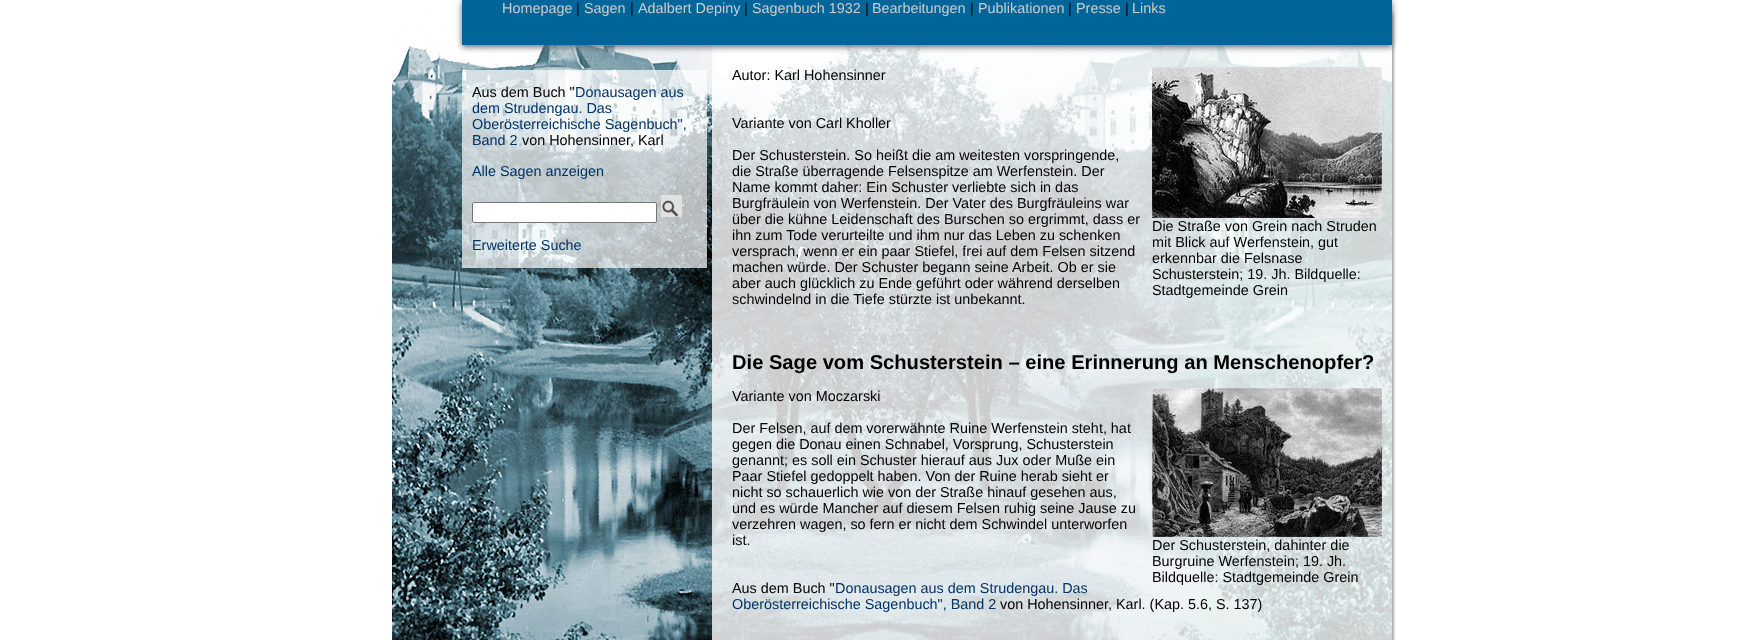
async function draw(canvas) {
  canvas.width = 1744;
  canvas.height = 640;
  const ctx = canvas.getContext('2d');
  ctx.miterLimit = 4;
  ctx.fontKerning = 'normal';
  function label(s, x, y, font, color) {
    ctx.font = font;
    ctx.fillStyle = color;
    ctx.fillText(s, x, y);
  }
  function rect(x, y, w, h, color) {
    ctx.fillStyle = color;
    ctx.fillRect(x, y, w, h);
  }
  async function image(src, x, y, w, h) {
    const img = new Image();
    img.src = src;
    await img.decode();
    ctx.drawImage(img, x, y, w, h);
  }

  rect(0, 0, 1744, 640, '#fff');
  await image('assets/img1.png', 392, 6, 1000, 634);
  ctx.save();
  ctx.beginPath();
  ctx.rect(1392, 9, 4, 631);
  ctx.clip();
  ctx.fillStyle = '#aaa';
  ctx.filter = 'blur(1px)';
  ctx.beginPath();
  ctx.roundRect(714, 8, 680, 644, 9);
  ctx.fill();
  ctx.filter = 'none';
  ctx.restore();
  rect(712, 45, 680, 595, '#ffffffcc');
  ctx.fillStyle = '#666';
  ctx.filter = 'blur(3px)';
  ctx.beginPath();
  ctx.rect(462, 2, 930, 45);
  ctx.fill();
  ctx.filter = 'none';
  rect(462, 0, 930, 45, '#069');
  label('Homepage', 502, 13, '14.4px Liberation Sans', '#ccc');
  label('|', 576, 13, '14.4px Liberation Sans', '#000');
  label('Sagen', 584, 13, '14.4px Liberation Sans', '#ccc');
  label('|', 630, 13, '14.4px Liberation Sans', '#000');
  label('Adalbert Depiny', 638, 13, '14.4px Liberation Sans', '#ccc');
  label('|', 744, 13, '14.4px Liberation Sans', '#000');
  label('Sagenbuch 1932', 752, 13, '14.4px Liberation Sans', '#ccc');
  label('|', 865, 13, '14.4px Liberation Sans', '#000');
  label('Bearbeitungen', 872, 13, '14.4px Liberation Sans', '#ccc');
  label('|', 970, 13, '14.4px Liberation Sans', '#000');
  label('Publikationen', 978, 13, '14.4px Liberation Sans', '#ccc');
  label('|', 1068, 13, '14.4px Liberation Sans', '#000');
  label('Presse', 1076, 13, '14.4px Liberation Sans', '#ccc');
  label('|', 1125, 13, '14.4px Liberation Sans', '#000');
  label('Links', 1132, 13, '14.4px Liberation Sans', '#ccc');
  rect(462, 70, 245, 198, '#ffffffb3');
  label('Aus dem Buch "', 472, 97, '14.4px Liberation Sans', '#000');
  label('Donausagen aus', 575, 97, '14.4px Liberation Sans', '#036');
  label('dem Strudengau. Das', 472, 113, '14.4px Liberation Sans', '#036');
  label('Oberösterreichische Sagenbuch",', 472, 129, '14.4px Liberation Sans', '#036');
  label('Band 2', 472, 145, '14.4px Liberation Sans', '#036');
  label('von Hohensinner, Karl', 522, 145, '14.4px Liberation Sans', '#000');
  label('Alle Sagen anzeigen', 472, 176, '14.4px Liberation Sans', '#036');
  ctx.fillStyle = '#fff';
  ctx.beginPath();
  ctx.roundRect(472.5, 202.5, 184, 20, 1.5);
  ctx.fill();
  ctx.strokeStyle = '#767676';
  ctx.stroke();
  await image('assets/img2.png', 661, 195, 21, 22);
  label('Erweiterte Suche', 472, 250, '14.4px Liberation Sans', '#036');
  label('Autor: Karl Hohensinner', 732, 80, '14.4px Liberation Sans', '#000');
  label('Variante von Carl Kholler', 732, 128, '14.4px Liberation Sans', '#000');
  label('Der Schusterstein. So heißt die am weitesten vorspringende,', 732, 160, '14.4px Liberation Sans', '#000');
  label('die Straße überragende Felsenspitze am Werfenstein. Der', 732, 176, '14.4px Liberation Sans', '#000');
  label('Name kommt daher: Ein Schuster verliebte sich in das', 732, 192, '14.4px Liberation Sans', '#000');
  label('Burgfräulein von Werfenstein. Der Vater des Burgfräuleins war', 732, 208, '14.4px Liberation Sans', '#000');
  label('über die kühne Leidenschaft des Burschen so ergrimmt, dass er', 732, 224, '14.4px Liberation Sans', '#000');
  label('ihn zum Tode verurteilte und ihm nur das Leben zu schenken', 732, 240, '14.4px Liberation Sans', '#000');
  label('versprach, wenn er ein paar Stiefel, frei auf dem Felsen sitzend', 732, 256, '14.4px Liberation Sans', '#000');
  label('machen würde. Der Schuster begann seine Arbeit. Ob er sie', 732, 272, '14.4px Liberation Sans', '#000');
  label('aber auch glücklich zu Ende geführt oder während derselben', 732, 288, '14.4px Liberation Sans', '#000');
  label('schwindelnd in die Tiefe stürzte ist unbekannt.', 732, 304, '14.4px Liberation Sans', '#000');
  await image('assets/img3.png', 1152, 67, 230, 151);
  label('Die Straße von Grein nach Struden', 1152, 231, '14.4px Liberation Sans', '#000');
  label('mit Blick auf Werfenstein, gut', 1152, 247, '14.4px Liberation Sans', '#000');
  label('erkennbar die Felsnase', 1152, 263, '14.4px Liberation Sans', '#000');
  label('Schusterstein; 19. Jh. Bildquelle:', 1152, 279, '14.4px Liberation Sans', '#000');
  label('Stadtgemeinde Grein', 1152, 295, '14.4px Liberation Sans', '#000');
  label('Die Sage vom Schusterstein – eine Erinnerung an Menschenopfer?', 732, 369, 'bold 20.15px Liberation Sans', '#000');
  label('Variante von Moczarski', 732, 401, '14.4px Liberation Sans', '#000');
  label('Der Felsen, auf dem vorerwähnte Ruine Werfenstein steht, hat', 732, 433, '14.4px Liberation Sans', '#000');
  label('gegen die Donau einen Schnabel, Vorsprung, Schusterstein', 732, 449, '14.4px Liberation Sans', '#000');
  label('genannt; es soll ein Schuster hierauf aus Jux oder Muße ein', 732, 465, '14.4px Liberation Sans', '#000');
  label('Paar Stiefel gedoppelt haben. Von der Ruine herab sieht er', 732, 481, '14.4px Liberation Sans', '#000');
  label('nicht so schauerlich wie von der Straße hinauf gesehen aus,', 732, 497, '14.4px Liberation Sans', '#000');
  label('und es würde Mancher auf diesem Felsen ruhig seine Jause zu', 732, 513, '14.4px Liberation Sans', '#000');
  label('verzehren wagen, so fern er nicht dem Schwindel unterworfen', 732, 529, '14.4px Liberation Sans', '#000');
  label('ist.', 732, 545, '14.4px Liberation Sans', '#000');
  label('Aus dem Buch "', 732, 593, '14.4px Liberation Sans', '#000');
  label('Donausagen aus dem Strudengau. Das', 835, 593, '14.4px Liberation Sans', '#036');
  label('Oberösterreichische Sagenbuch", Band 2', 732, 609, '14.4px Liberation Sans', '#036');
  label('von Hohensinner, Karl. (Kap. 5.6, S. 137)', 1000, 609, '14.4px Liberation Sans', '#000');
  await image('assets/img4.png', 1152, 388, 230, 149);
  label('Der Schusterstein, dahinter die', 1152, 550, '14.4px Liberation Sans', '#000');
  label('Burgruine Werfenstein; 19. Jh.', 1152, 566, '14.4px Liberation Sans', '#000');
  label('Bildquelle: Stadtgemeinde Grein', 1152, 582, '14.4px Liberation Sans', '#000');
}

draw(document.querySelector('canvas'));
